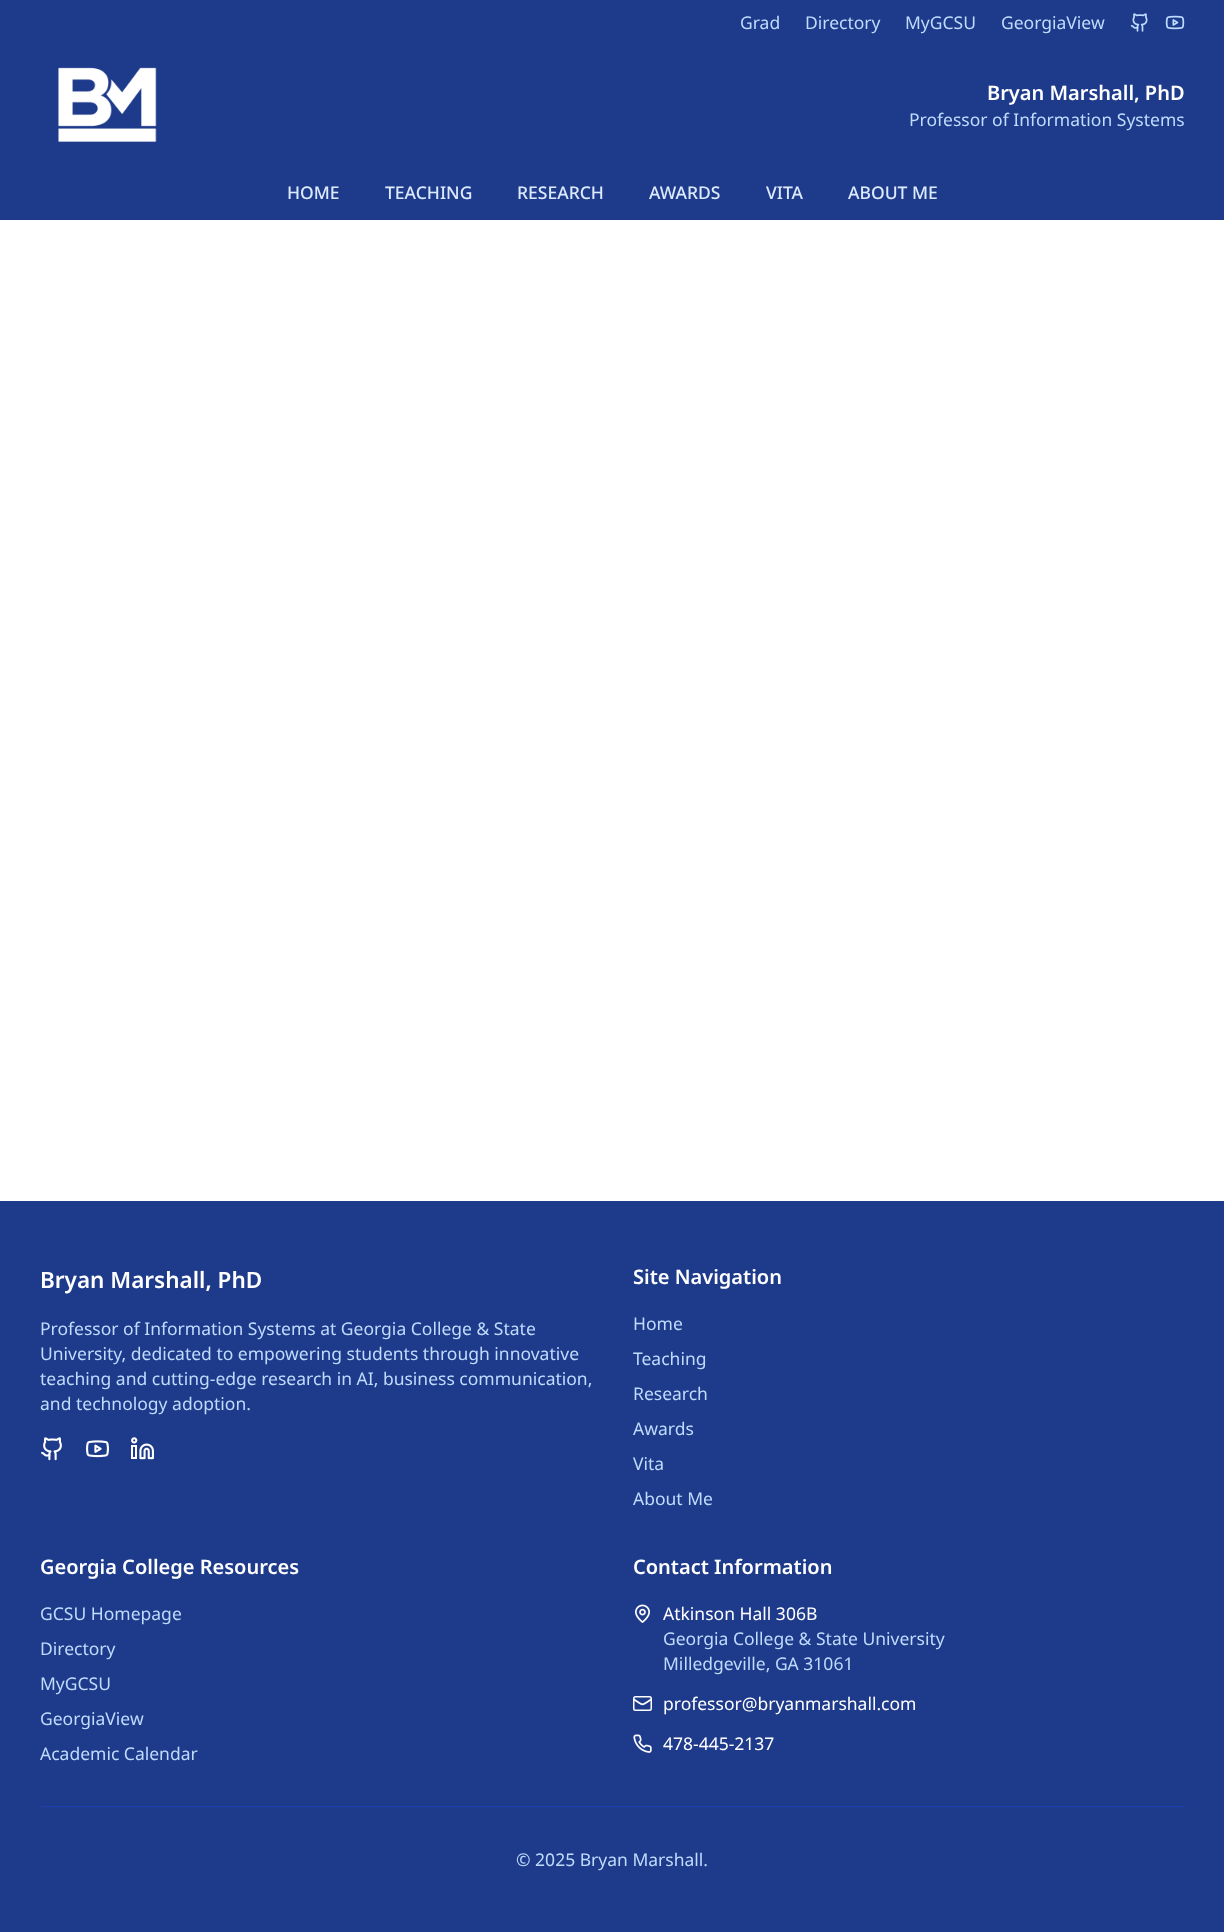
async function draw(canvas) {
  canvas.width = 1224;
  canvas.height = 1932;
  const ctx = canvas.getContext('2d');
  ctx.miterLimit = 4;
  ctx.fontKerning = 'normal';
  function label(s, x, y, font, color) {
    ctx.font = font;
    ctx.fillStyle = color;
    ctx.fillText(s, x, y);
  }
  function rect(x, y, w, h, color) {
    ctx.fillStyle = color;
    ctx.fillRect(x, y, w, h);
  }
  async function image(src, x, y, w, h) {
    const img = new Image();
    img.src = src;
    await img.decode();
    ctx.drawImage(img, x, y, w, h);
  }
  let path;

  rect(0, 0, 1224, 1932, '#fff');
  rect(0, 0, 1224, 220, '#1e3a8a');
  label('Grad', 740, 29, '17.5px Noto Sans', '#bfdbfe');
  label('Directory', 805, 29, '17.5px Noto Sans', '#bfdbfe');
  label('MyGCSU', 905, 29, '17.5px Noto Sans', '#bfdbfe');
  label('GeorgiaView', 1001, 29, '17.5px Noto Sans', '#bfdbfe');
  await image('assets/img1.png', 1130, 13, 18, 19);
  await image('assets/img2.png', 1165, 15, 20, 15);
  await image('assets/img3.png', 58, 67, 99, 75);
  label('Bryan Marshall, PhD', 987, 100, '600 20px Noto Sans', '#fff');
  label('Professor of Information Systems', 909, 126, '17.5px Noto Sans', '#bfdbfe');
  label('HOME', 287, 199, '500 17.5px Noto Sans', '#dbeafe');
  label('TEACHING', 385, 199, '500 17.5px Noto Sans', '#dbeafe');
  label('RESEARCH', 517, 199, '500 17.5px Noto Sans', '#dbeafe');
  label('AWARDS', 649, 199, '500 17.5px Noto Sans', '#dbeafe');
  label('VITA', 766, 199, '500 17.5px Noto Sans', '#dbeafe');
  label('ABOUT ME', 848, 199, '500 17.5px Noto Sans', '#dbeafe');
  rect(0, 1201, 1224, 731, '#1e3a8a');
  label('Bryan Marshall, PhD', 40, 1288, '600 22.5px Noto Sans', '#fff');
  label('Professor of Information Systems at Georgia College & State', 40, 1335, '17.5px Noto Sans', '#bfdbfe');
  label('University, dedicated to empowering students through innovative', 40, 1360, '17.5px Noto Sans', '#bfdbfe');
  label('teaching and cutting-edge research in AI, business communication,', 40, 1385, '17.5px Noto Sans', '#bfdbfe');
  label('and technology adoption.', 40, 1410, '17.5px Noto Sans', '#bfdbfe');
  await image('assets/img4.png', 41, 1437, 21, 24);
  await image('assets/img5.png', 86, 1440, 23, 18);
  await image('assets/img6.png', 131, 1437, 23, 23);
  label('Site Navigation', 633, 1284, '600 20px Noto Sans', '#fff');
  label('Home', 633, 1330, '17.5px Noto Sans', '#bfdbfe');
  label('Teaching', 633, 1365, '17.5px Noto Sans', '#bfdbfe');
  label('Research', 633, 1400, '17.5px Noto Sans', '#bfdbfe');
  label('Awards', 633, 1435, '17.5px Noto Sans', '#bfdbfe');
  label('Vita', 633, 1470, '17.5px Noto Sans', '#bfdbfe');
  label('About Me', 633, 1505, '17.5px Noto Sans', '#bfdbfe');
  label('Georgia College Resources', 40, 1574, '600 20px Noto Sans', '#fff');
  label('GCSU Homepage', 40, 1620, '17.5px Noto Sans', '#bfdbfe');
  label('Directory', 40, 1655, '17.5px Noto Sans', '#bfdbfe');
  label('MyGCSU', 40, 1690, '17.5px Noto Sans', '#bfdbfe');
  label('GeorgiaView', 40, 1725, '17.5px Noto Sans', '#bfdbfe');
  label('Academic Calendar', 40, 1760, '17.5px Noto Sans', '#bfdbfe');
  label('Contact Information', 633, 1574, '600 20px Noto Sans', '#fff');
  await image('assets/img7.png', 635, 1604, 15, 19);
  label('Atkinson Hall 306B', 663, 1620, '17.5px Noto Sans', '#fff');
  label('Georgia College & State University', 663, 1645, '17.5px Noto Sans', '#bfdbfe');
  label('Milledgeville, GA 31061', 663, 1670, '17.5px Noto Sans', '#bfdbfe');
  ctx.beginPath();
  ctx.roundRect(633.75, 1696.75, 17.5, 13.5, 1.75);
  ctx.strokeStyle = '#fff';
  ctx.lineWidth = 1.5;
  ctx.stroke();
  path = new Path2D('M651 1699.5C640.5 1706 644.5 1706 634 1699.5');
  ctx.lineWidth = 1.7;
  ctx.lineCap = 'round';
  ctx.lineJoin = 'round';
  ctx.stroke(path);
  label('professor@bryanmarshall.com', 663, 1710, '17.5px Noto Sans', '#fff');
  await image('assets/img8.png', 633, 1734, 19, 19);
  label('478-445-2137', 663, 1750, '17.5px Noto Sans', '#fff');
  rect(40, 1806, 1145, 1, '#1e40af');
  label('© 2025 Bryan Marshall.', 516, 1866, '17.5px Noto Sans', '#bfdbfe');
}

draw(document.querySelector('canvas'));
